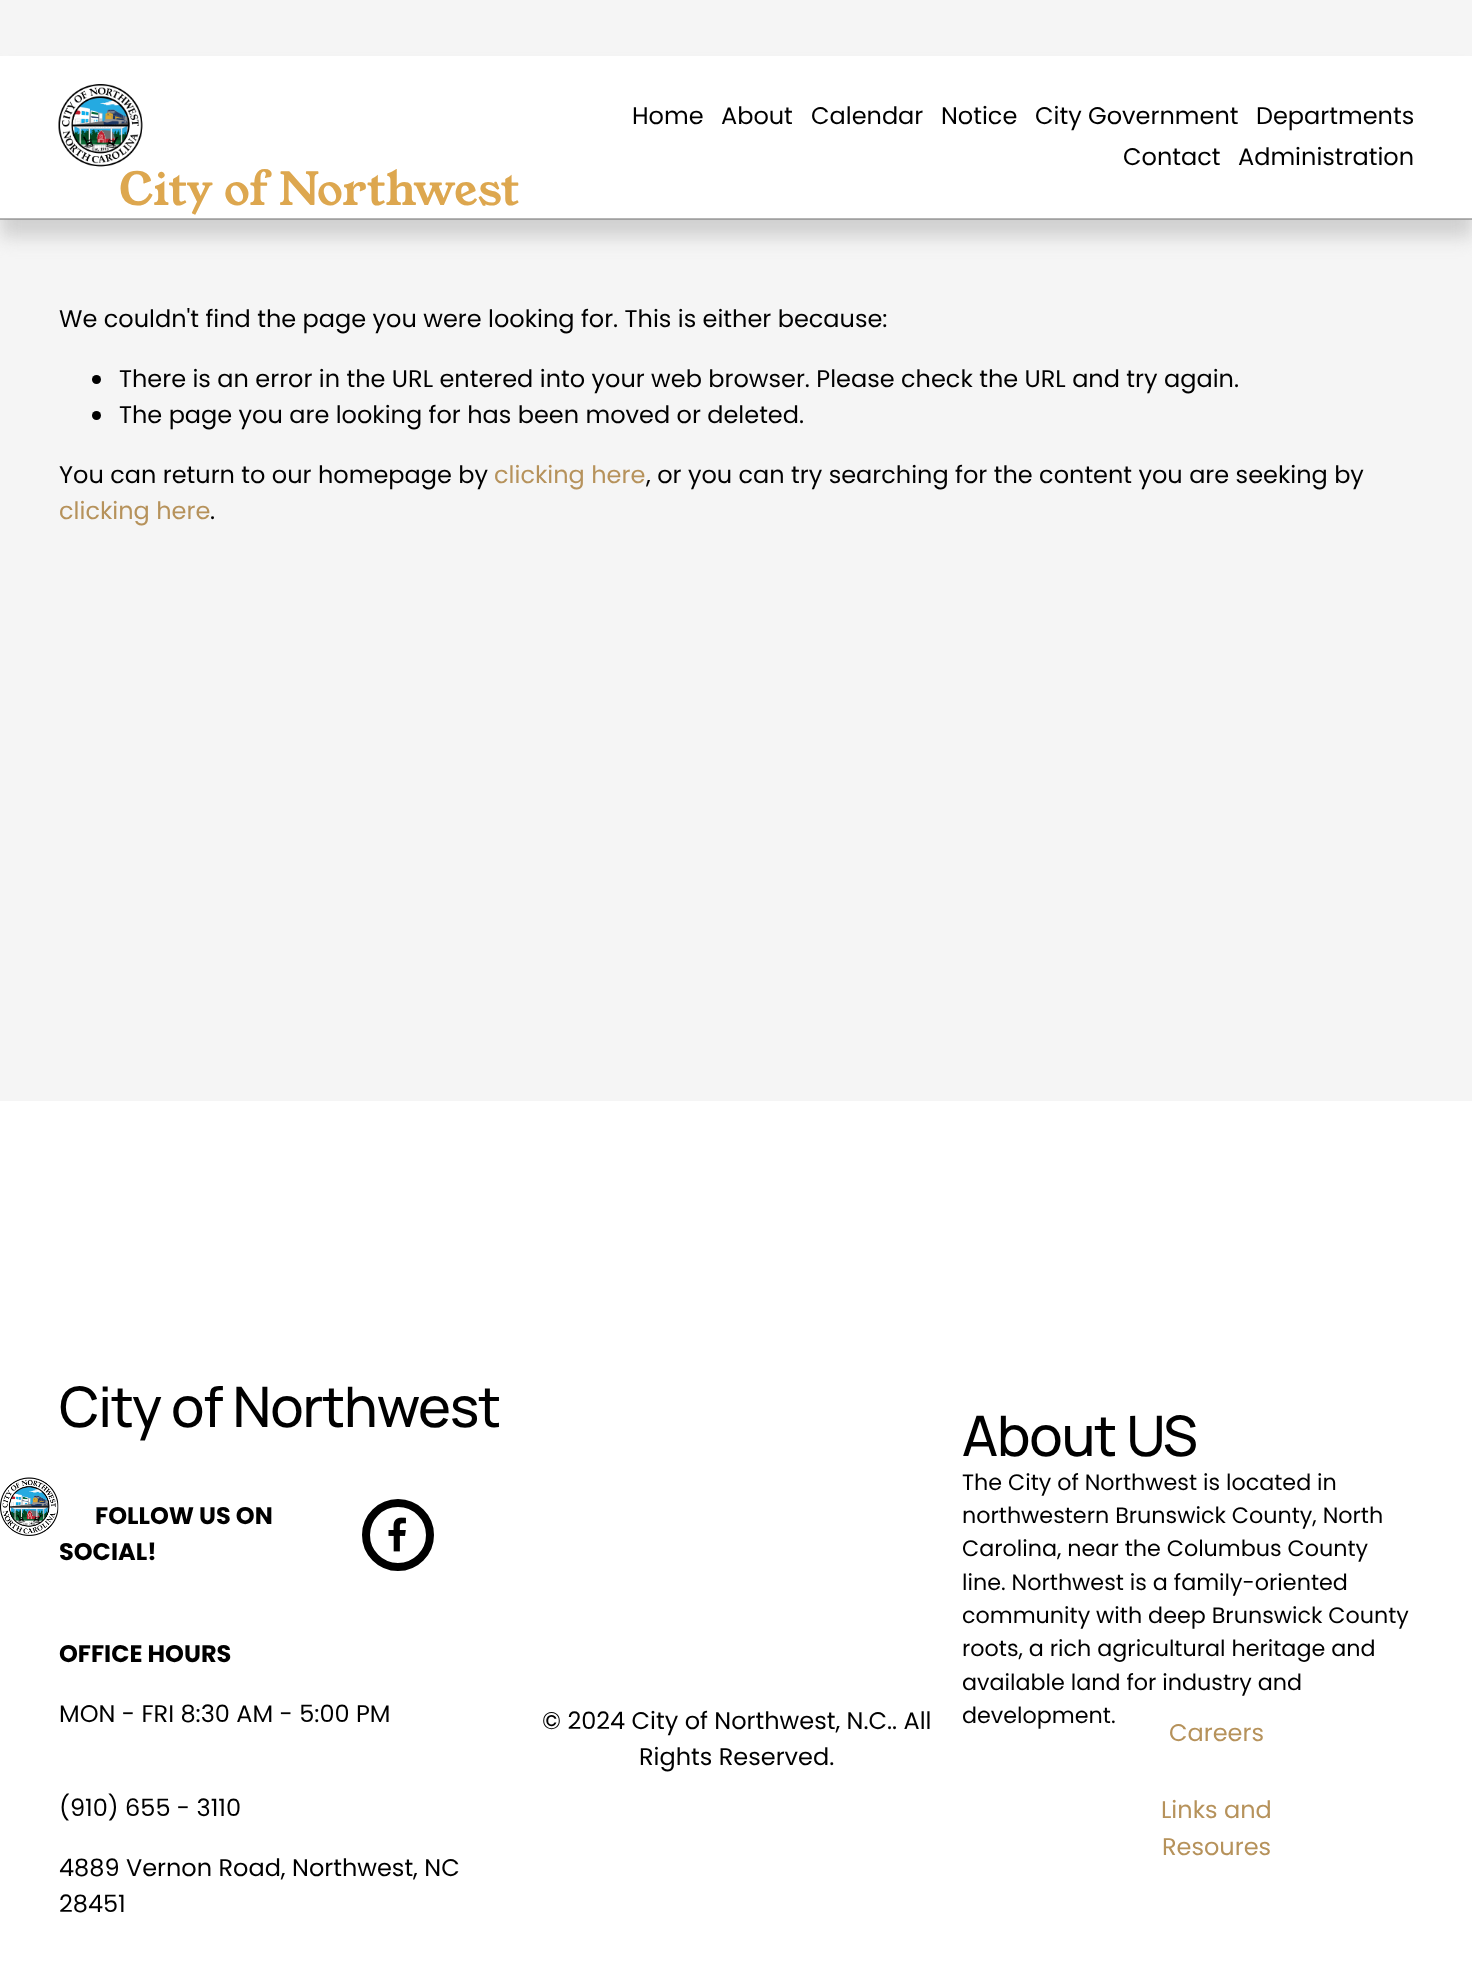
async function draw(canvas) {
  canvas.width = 1472;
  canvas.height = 1979;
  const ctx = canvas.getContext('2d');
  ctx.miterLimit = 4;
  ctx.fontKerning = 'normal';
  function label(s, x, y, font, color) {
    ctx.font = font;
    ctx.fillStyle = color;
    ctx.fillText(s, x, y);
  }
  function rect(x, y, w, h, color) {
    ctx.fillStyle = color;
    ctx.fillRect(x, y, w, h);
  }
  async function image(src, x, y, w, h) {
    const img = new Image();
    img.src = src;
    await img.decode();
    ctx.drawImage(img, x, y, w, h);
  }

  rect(0, 0, 1472, 1979, '#f5f5f5');
  ctx.fillStyle = '#d0d0d0';
  ctx.filter = 'blur(9px)';
  ctx.beginPath();
  ctx.rect(0, 74, 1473, 163);
  ctx.fill();
  ctx.filter = 'none';
  rect(0, 56, 1472, 163, '#fff');
  label('Home', 632, 124, '24px Poppins', '#000');
  label('About', 721, 124, '24px Poppins', '#000');
  label('Calendar', 811, 124, '24px Poppins', '#000');
  label('Notice', 941, 124, '24px Poppins', '#000');
  label('City Government', 1035, 124, '24px Poppins', '#000');
  label('Departments', 1256, 124, '24px Poppins', '#000');
  label('Contact', 1123, 165, '24px Poppins', '#000');
  label('Administration', 1238, 165, '24px Poppins', '#000');
  await image('assets/img1.png', 58, 84, 85, 83);
  label('City of Northwest', 119, 205, '45px Young Serif', '#dda74f');
  rect(0, 218, 1472, 2, '#7979798c');
  label('We couldn\'t find the page you were looking for. This is either because:', 59, 327, '24px Poppins', '#000');
  ctx.beginPath();
  ctx.arc(96.5, 379.5, 4.5, 0, 2 * Math.PI);
  ctx.fill();
  label('There is an error in the URL entered into your web browser. Please check the URL and try again.', 119, 387, '24px Poppins', '#000');
  ctx.beginPath();
  ctx.arc(96.5, 415.5, 4.5, 0, 2 * Math.PI);
  ctx.fill();
  label('The page you are looking for has been moved or deleted.', 119, 423, '24px Poppins', '#000');
  label('You can return to our homepage by', 59, 483, '24px Poppins', '#000');
  label('clicking here', 494, 483, '24px Poppins', '#b6925b');
  label(', or you can try searching for the content you are seeking by', 646, 483, '24px Poppins', '#000');
  label('clicking here', 59, 519, '24px Poppins', '#b6925b');
  label('.', 210, 519, '24px Poppins', '#000');
  rect(0, 1101, 1472, 878, '#fff');
  ctx.letterSpacing = '-1.1px';
  label('City of Northwest', 59, 1427, '500 55.75px Manrope', '#000');
  label('About US', 962, 1456, '500 55.75px Manrope', '#000');
  await image('assets/img2.png', 0, 1477, 59, 59);
  ctx.letterSpacing = '0px';
  label('FOLLOW US ON', 95, 1524, 'bold 24px Poppins', '#000');
  label('SOCIAL!', 59, 1560, 'bold 24px Poppins', '#000');
  ctx.beginPath();
  ctx.arc(398, 1535, 32, 0, 2 * Math.PI);
  ctx.strokeStyle = '#000';
  ctx.lineWidth = 8;
  ctx.stroke();
  await image('assets/img3.png', 388, 1517, 18, 35);
  label('The City of Northwest is located in', 962, 1490, '22.25px Poppins', '#000');
  label('northwestern Brunswick County, North', 962, 1523, '22.25px Poppins', '#000');
  label('Carolina, near the Columbus County', 962, 1556, '22.25px Poppins', '#000');
  label('line. Northwest is a family-oriented', 962, 1590, '22.25px Poppins', '#000');
  label('community with deep Brunswick County', 962, 1623, '22.25px Poppins', '#000');
  label('roots, a rich agricultural heritage and', 962, 1656, '22.25px Poppins', '#000');
  label('available land for industry and', 962, 1690, '22.25px Poppins', '#000');
  label('development.', 962, 1723, '22.25px Poppins', '#000');
  label('OFFICE HOURS', 59, 1662, 'bold 24px Poppins', '#000');
  label('MON - FRI 8:30 AM - 5:00 PM', 59, 1722, '24px Poppins', '#000');
  label('© 2024 City of Northwest, N.C.. All', 542, 1729, '24px Poppins', '#000');
  label('Rights Reserved.', 639, 1765, '24px Poppins', '#000');
  label('Careers', 1169, 1741, '24px Poppins', '#b6925b');
  label('(910) 655 - 3110', 59, 1816, '24px Poppins', '#000');
  label('4889 Vernon Road, Northwest, NC', 59, 1876, '24px Poppins', '#000');
  label('28451', 59, 1912, '24px Poppins', '#000');
  label('Links and', 1161, 1818, '24px Poppins', '#b6925b');
  label('Resoures', 1162, 1855, '24px Poppins', '#b6925b');
}

draw(document.querySelector('canvas'));
